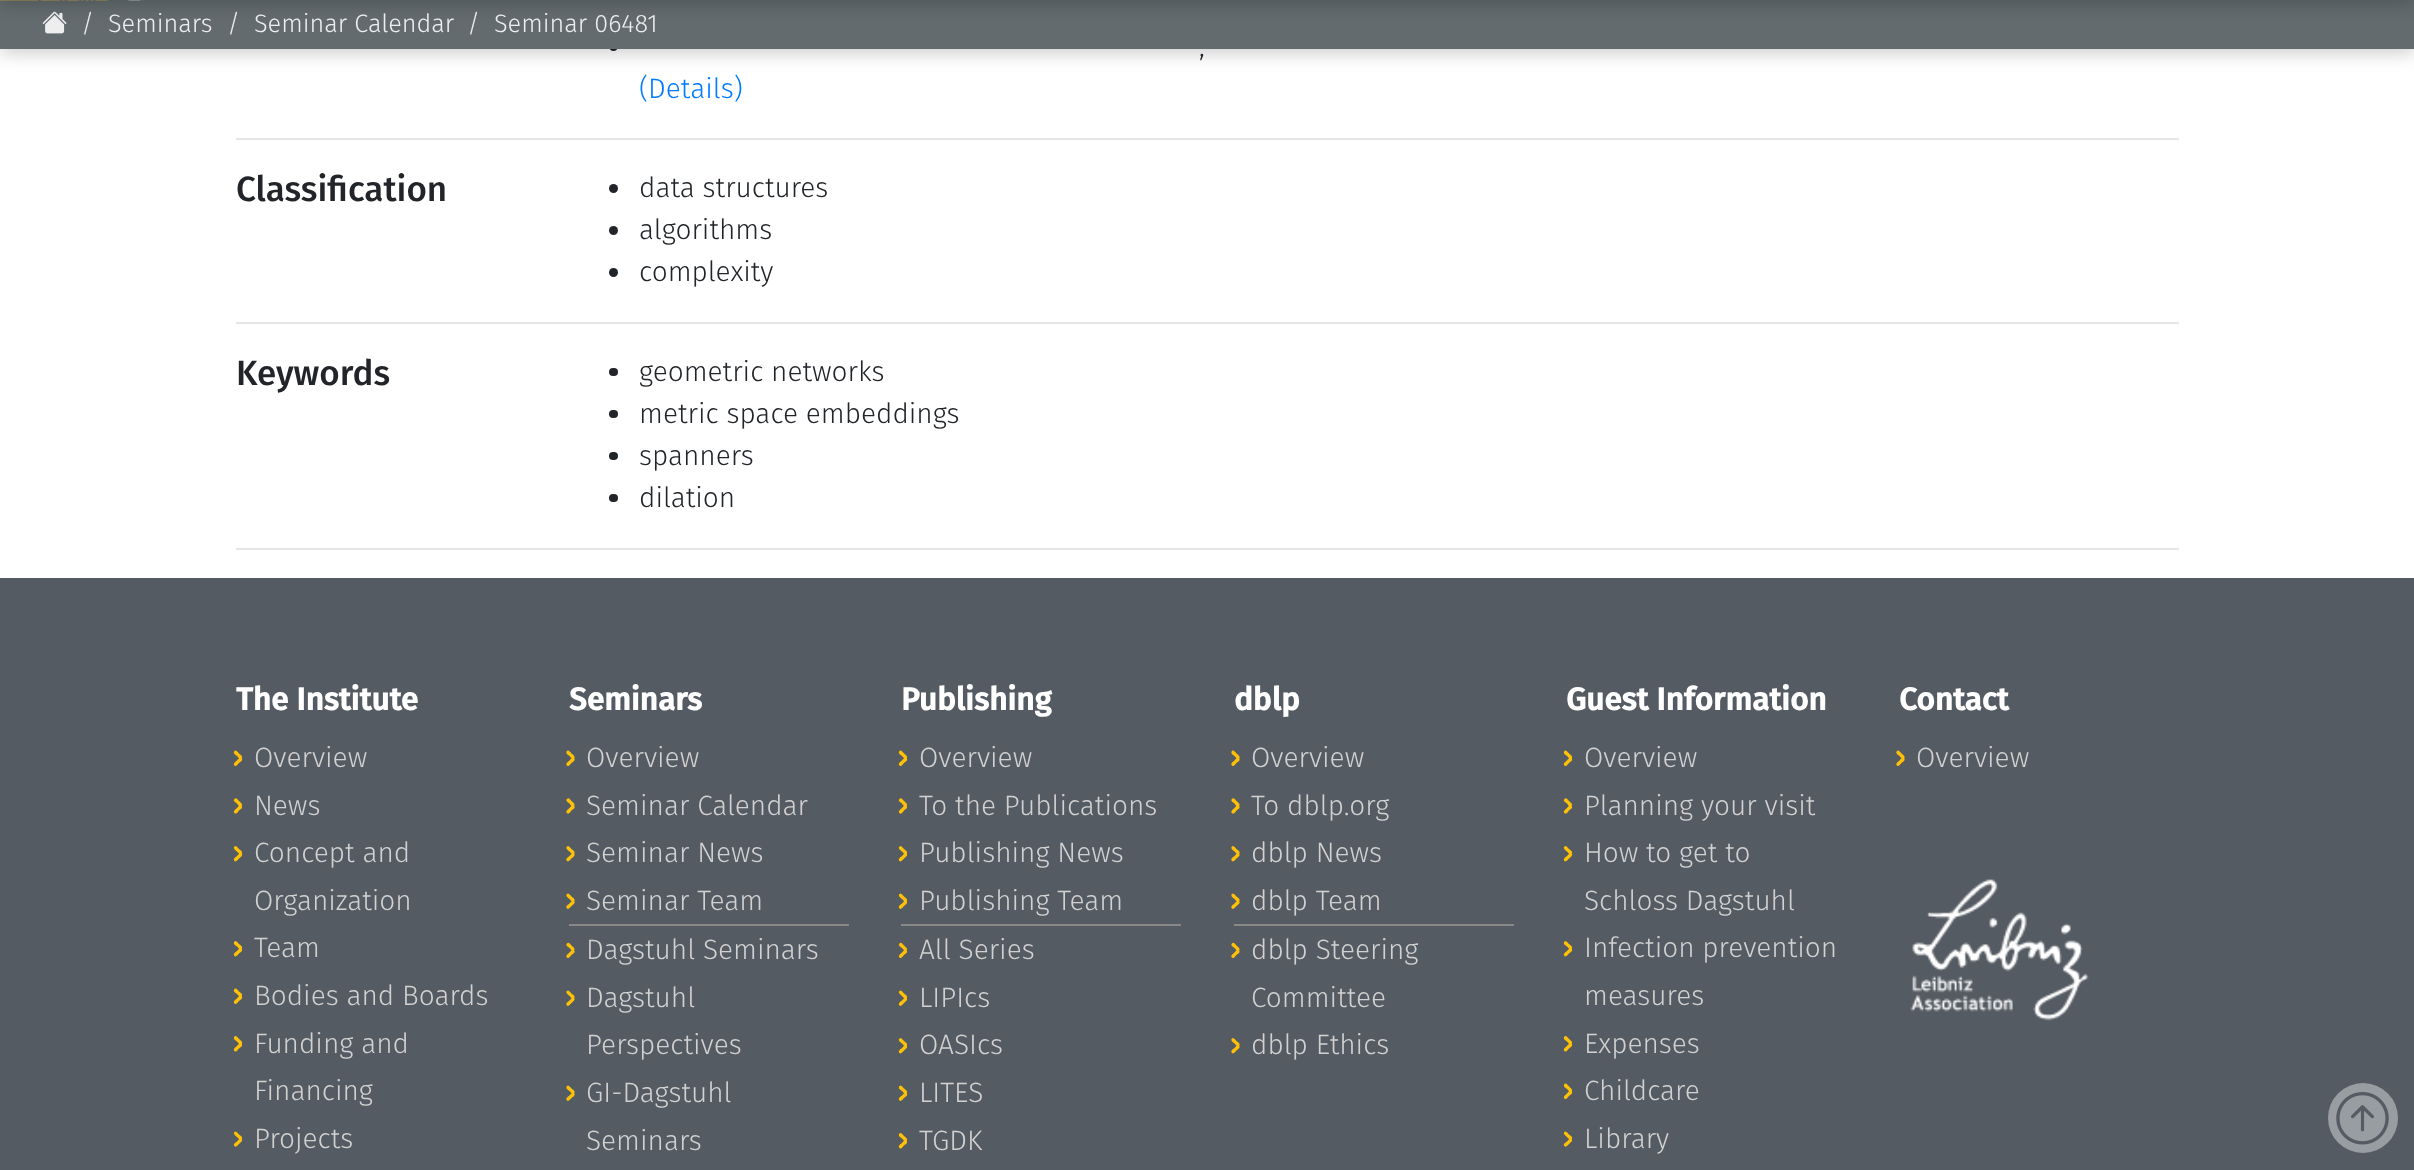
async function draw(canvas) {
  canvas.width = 2414;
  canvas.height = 1170;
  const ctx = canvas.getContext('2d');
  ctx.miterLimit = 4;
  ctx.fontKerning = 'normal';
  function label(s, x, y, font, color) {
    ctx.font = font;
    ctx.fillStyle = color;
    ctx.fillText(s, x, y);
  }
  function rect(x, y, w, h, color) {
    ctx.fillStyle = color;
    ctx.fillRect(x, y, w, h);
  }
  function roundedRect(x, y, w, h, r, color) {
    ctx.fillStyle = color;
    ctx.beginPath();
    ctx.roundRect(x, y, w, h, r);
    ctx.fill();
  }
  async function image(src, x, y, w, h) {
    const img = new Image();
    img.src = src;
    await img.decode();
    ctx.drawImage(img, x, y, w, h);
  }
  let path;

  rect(0, 0, 2414, 1170, '#fff');
  ctx.fillStyle = '#212529';
  ctx.beginPath();
  ctx.arc(613.5, 46.5, 4.5, 0, 2 * Math.PI);
  ctx.fill();
  ctx.fillStyle = '#00000033';
  ctx.filter = 'blur(9px)';
  ctx.beginPath();
  ctx.rect(0, 4, 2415, 49);
  ctx.fill();
  ctx.filter = 'none';
  rect(0, 0, 2414, 49, '#636b6f');
  await image('assets/img2.png', 42, 11, 25, 23);
  ctx.fillStyle = '#00000033';
  ctx.filter = 'blur(9px)';
  ctx.beginPath();
  ctx.rect(0, -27, 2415, 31);
  ctx.fill();
  ctx.filter = 'none';
  await image('assets/img1.png', 0, 0, 144, 1);
  label('/', 81, 32, '300 25.25px Fira Sans', '#eee');
  label('Seminars', 108, 32, '300 25.25px Fira Sans', '#eee');
  label('/', 227, 32, '300 25.25px Fira Sans', '#eee');
  label('Seminar Calendar', 254, 32, '300 25.25px Fira Sans', '#eee');
  label('/', 467, 32, '300 25.25px Fira Sans', '#eee');
  label('Seminar 06481', 494, 32, '300 25.25px Fira Sans', '#eee');
  label(',', 1199, 56, '300 28px Fira Sans', '#212529');
  label('(Details)', 639, 98, '300 28px Fira Sans', '#007bff');
  rect(236, 138, 1943, 2, '#e6e6e6');
  label('Classification', 236, 201, '500 35px Fira Sans', '#212529');
  ctx.beginPath();
  ctx.arc(613.5, 188.5, 4.5, 0, 2 * Math.PI);
  ctx.fill();
  label('data structures', 639, 197, '300 28px Fira Sans', '#212529');
  ctx.beginPath();
  ctx.arc(613.5, 230.5, 4.5, 0, 2 * Math.PI);
  ctx.fill();
  label('algorithms', 639, 239, '300 28px Fira Sans', '#212529');
  ctx.beginPath();
  ctx.arc(613.5, 272.5, 4.5, 0, 2 * Math.PI);
  ctx.fill();
  label('complexity', 639, 281, '300 28px Fira Sans', '#212529');
  rect(236, 322, 1943, 2, '#e6e6e6');
  label('Keywords', 236, 385, '500 35px Fira Sans', '#212529');
  roundedRect(609, 368, 9, 8, 4, '#212529');
  label('geometric networks', 639, 381, '300 28px Fira Sans', '#212529');
  roundedRect(609, 410, 9, 8, 4, '#212529');
  label('metric space embeddings', 639, 423, '300 28px Fira Sans', '#212529');
  roundedRect(609, 452, 9, 8, 4, '#212529');
  label('spanners', 639, 465, '300 28px Fira Sans', '#212529');
  roundedRect(609, 494, 9, 8, 4, '#212529');
  label('dilation', 639, 507, '300 28px Fira Sans', '#212529');
  rect(236, 548, 1943, 2, '#e6e6e6');
  rect(0, 578, 2414, 592, '#545b62');
  label('The Institute', 236, 710, 'bold 31.5px Fira Sans', '#fff');
  ctx.fillStyle = '#ffc107';
  path = new Path2D('M234.5 751C236 749.5 238 752.5 239 753.5C240.5 754.5 243.5 757 241.5 758.5C240 760.5 238 757 237 756C235.5 755 232.5 753 234.5 751Z');
  ctx.fill(path);
  label('Overview', 254, 767, '300 28px Fira Sans', '#d2d1d1');
  ctx.fillStyle = '#ffc107';
  path = new Path2D('M241.5 758C243.5 760 240.5 762 239 763C238 764 236 767.5 234.5 765.5C232.5 764 235.5 761.5 237 760.5C238 759.5 240 756.5 241.5 758Z');
  ctx.fill(path);
  path = new Path2D('M234.5 799C236 797 238 800 239 801C240.5 802.5 243.5 804.5 241.5 806C240 808 238 805 237 803.5C235.5 802.5 232.5 800.5 234.5 799Z');
  ctx.fill(path);
  label('News', 254, 815, '300 28px Fira Sans', '#d2d1d1');
  ctx.fillStyle = '#ffc107';
  path = new Path2D('M241.5 806C243.5 807.5 240.5 809.5 239 810.5C238 812 236 815 234.5 813C232.5 811.5 235.5 809.5 237 808C238 807 240 804 241.5 806Z');
  ctx.fill(path);
  path = new Path2D('M234.5 846.5C236 844.5 238 848 239 849C240.5 850 243.5 852 241.5 854C240 855.5 238 852.5 237 851.5C235.5 850.5 232.5 848 234.5 846.5Z');
  ctx.fill(path);
  label('Concept and', 254, 862, '300 28px Fira Sans', '#d2d1d1');
  ctx.fillStyle = '#ffc107';
  path = new Path2D('M241.5 853.5C243.5 855 240.5 857.5 239 858.5C238 859.5 236 862.5 234.5 861C232.5 859 235.5 857 237 856C238 855 240 851.5 241.5 853.5Z');
  ctx.fill(path);
  label('Organization', 254, 910, '300 28px Fira Sans', '#d2d1d1');
  ctx.fillStyle = '#ffc107';
  path = new Path2D('M234.5 941.5C236 939.5 238 943 239 944C240.5 945 243.5 947 241.5 949C240 950.5 238 947.5 237 946.5C235.5 945.5 232.5 943.5 234.5 941.5Z');
  ctx.fill(path);
  label('Team', 254, 957, '300 28px Fira Sans', '#d2d1d1');
  ctx.fillStyle = '#ffc107';
  path = new Path2D('M241.5 948.5C243.5 950.5 240.5 952.5 239 953.5C238 954.5 236 957.5 234.5 956C232.5 954 235.5 952 237 951C238 950 240 946.5 241.5 948.5Z');
  ctx.fill(path);
  path = new Path2D('M234.5 989C236 987.5 238 990.5 239 991.5C240.5 992.5 243.5 994.5 241.5 996.5C240 998.5 238 995 237 994C235.5 993 232.5 991 234.5 989Z');
  ctx.fill(path);
  label('Bodies and Boards', 254, 1005, '300 28px Fira Sans', '#d2d1d1');
  ctx.fillStyle = '#ffc107';
  path = new Path2D('M241.5 996C243.5 998 240.5 1000 239 1001C238 1002 236 1005.5 234.5 1003.5C232.5 1001.5 235.5 999.5 237 998.5C238 997.5 240 994.5 241.5 996Z');
  ctx.fill(path);
  path = new Path2D('M234.5 1036.5C236 1035 238 1038 239 1039C240.5 1040 243.5 1042.5 241.5 1044C240 1046 238 1042.5 237 1041.5C235.5 1040.5 232.5 1038.5 234.5 1036.5Z');
  ctx.fill(path);
  label('Funding and', 254, 1053, '300 28px Fira Sans', '#d2d1d1');
  ctx.fillStyle = '#ffc107';
  path = new Path2D('M241.5 1043.5C243.5 1045.5 240.5 1047.5 239 1048.5C238 1049.5 236 1053 234.5 1051C232.5 1049.5 235.5 1047 237 1046C238 1045 240 1042 241.5 1043.5Z');
  ctx.fill(path);
  label('Financing', 254, 1100, '300 28px Fira Sans', '#d2d1d1');
  ctx.fillStyle = '#ffc107';
  path = new Path2D('M234.5 1132C236 1130 238 1133.5 239 1134.5C240.5 1135.5 243.5 1137.5 241.5 1139C240 1141 238 1138 237 1137C235.5 1135.5 232.5 1133.5 234.5 1132Z');
  ctx.fill(path);
  label('Projects', 254, 1148, '300 28px Fira Sans', '#d2d1d1');
  ctx.fillStyle = '#ffc107';
  path = new Path2D('M241.5 1139C243.5 1140.5 240.5 1142.5 239 1144C238 1145 236 1148 234.5 1146C232.5 1144.5 235.5 1142.5 237 1141.5C238 1140.5 240 1137 241.5 1139Z');
  ctx.fill(path);
  label('Seminars', 569, 710, 'bold 31.5px Fira Sans', '#fff');
  ctx.fillStyle = '#ffc107';
  path = new Path2D('M567 751C568.5 749.5 570.5 752.5 571.5 753.5C573 754.5 576 757 574 758.5C572.5 760.5 570.5 757 569.5 756C568 755 565 753 567 751Z');
  ctx.fill(path);
  label('Overview', 586, 767, '300 28px Fira Sans', '#d2d1d1');
  ctx.fillStyle = '#ffc107';
  path = new Path2D('M574 758C576 760 573 762 571.5 763C570.5 764 568.5 767.5 567 765.5C565 764 568 761.5 569.5 760.5C570.5 759.5 572.5 756.5 574 758Z');
  ctx.fill(path);
  path = new Path2D('M567 799C568.5 797 570.5 800 571.5 801C573 802.5 576 804.5 574 806C572.5 808 570.5 805 569.5 803.5C568 802.5 565 800.5 567 799Z');
  ctx.fill(path);
  label('Seminar Calendar', 586, 815, '300 28px Fira Sans', '#d2d1d1');
  ctx.fillStyle = '#ffc107';
  path = new Path2D('M574 806C576 807.5 573 809.5 571.5 810.5C570.5 812 568.5 815 567 813C565 811.5 568 809.5 569.5 808C570.5 807 572.5 804 574 806Z');
  ctx.fill(path);
  path = new Path2D('M567 846.5C568.5 844.5 570.5 848 571.5 849C573 850 576 852 574 854C572.5 855.5 570.5 852.5 569.5 851.5C568 850.5 565 848 567 846.5Z');
  ctx.fill(path);
  label('Seminar News', 586, 862, '300 28px Fira Sans', '#d2d1d1');
  ctx.fillStyle = '#ffc107';
  path = new Path2D('M574 853.5C576 855 573 857.5 571.5 858.5C570.5 859.5 568.5 862.5 567 861C565 859 568 857 569.5 856C570.5 855 572.5 851.5 574 853.5Z');
  ctx.fill(path);
  rect(569, 924, 280, 2, '#888');
  ctx.fillStyle = '#ffc107';
  path = new Path2D('M567 894C568.5 892 570.5 895.5 571.5 896.5C573 897.5 576 899.5 574 901.5C572.5 903 570.5 900 569.5 899C568 898 565 895.5 567 894Z');
  ctx.fill(path);
  label('Seminar Team', 586, 910, '300 28px Fira Sans', '#d2d1d1');
  ctx.fillStyle = '#ffc107';
  path = new Path2D('M574 901C576 902.5 573 905 571.5 906C570.5 907 568.5 910 567 908.5C565 906.5 568 904.5 569.5 903.5C570.5 902.5 572.5 899 574 901Z');
  ctx.fill(path);
  path = new Path2D('M567 943.5C568.5 941.5 570.5 944.5 571.5 945.5C573 947 576 949 574 950.5C572.5 952.5 570.5 949 569.5 948C568 947 565 945 567 943.5Z');
  ctx.fill(path);
  label('Dagstuhl Seminars', 586, 959, '300 28px Fira Sans', '#d2d1d1');
  ctx.fillStyle = '#ffc107';
  path = new Path2D('M574 950.5C576 952 573 954 571.5 955C570.5 956 568.5 959.5 567 957.5C565 956 568 954 569.5 952.5C570.5 951.5 572.5 948.5 574 950.5Z');
  ctx.fill(path);
  path = new Path2D('M567 991C568.5 989 570.5 992.5 571.5 993.5C573 994.5 576 996.5 574 998.5C572.5 1000 570.5 997 569.5 996C568 994.5 565 992.5 567 991Z');
  ctx.fill(path);
  label('Dagstuhl', 586, 1007, '300 28px Fira Sans', '#d2d1d1');
  ctx.fillStyle = '#ffc107';
  path = new Path2D('M574 998C576 999.5 573 1001.5 571.5 1003C570.5 1004 568.5 1007 567 1005.5C565 1003.5 568 1001.5 569.5 1000.5C570.5 999.5 572.5 996 574 998Z');
  ctx.fill(path);
  label('Perspectives', 586, 1054, '300 28px Fira Sans', '#d2d1d1');
  ctx.fillStyle = '#ffc107';
  path = new Path2D('M567 1086C568.5 1084 570.5 1087.5 571.5 1088.5C573 1089.5 576 1091.5 574 1093.5C572.5 1095 570.5 1092 569.5 1091C568 1090 565 1088 567 1086Z');
  ctx.fill(path);
  label('GI-Dagstuhl', 586, 1102, '300 28px Fira Sans', '#d2d1d1');
  ctx.fillStyle = '#ffc107';
  path = new Path2D('M574 1093C576 1095 573 1097 571.5 1098C570.5 1099 568.5 1102 567 1100.5C565 1098.5 568 1096.5 569.5 1095.5C570.5 1094.5 572.5 1091 574 1093Z');
  ctx.fill(path);
  label('Seminars', 586, 1150, '300 28px Fira Sans', '#d2d1d1');
  label('Publishing', 901, 710, 'bold 31.5px Fira Sans', '#fff');
  ctx.fillStyle = '#ffc107';
  path = new Path2D('M899.5 751C901 749.5 903 752.5 904 753.5C905.5 754.5 908.5 757 906.5 758.5C905 760.5 903 757 902 756C900.5 755 897.5 753 899.5 751Z');
  ctx.fill(path);
  label('Overview', 919, 767, '300 28px Fira Sans', '#d2d1d1');
  ctx.fillStyle = '#ffc107';
  path = new Path2D('M906.5 758C908.5 760 905.5 762 904 763C903 764 901 767.5 899.5 765.5C897.5 764 900.5 761.5 902 760.5C903 759.5 905 756.5 906.5 758Z');
  ctx.fill(path);
  path = new Path2D('M899.5 799C901 797 903 800 904 801C905.5 802.5 908.5 804.5 906.5 806C905 808 903 805 902 803.5C900.5 802.5 897.5 800.5 899.5 799Z');
  ctx.fill(path);
  label('To the Publications', 919, 815, '300 28px Fira Sans', '#d2d1d1');
  ctx.fillStyle = '#ffc107';
  path = new Path2D('M906.5 806C908.5 807.5 905.5 809.5 904 810.5C903 812 901 815 899.5 813C897.5 811.5 900.5 809.5 902 808C903 807 905 804 906.5 806Z');
  ctx.fill(path);
  path = new Path2D('M899.5 846.5C901 844.5 903 848 904 849C905.5 850 908.5 852 906.5 854C905 855.5 903 852.5 902 851.5C900.5 850.5 897.5 848 899.5 846.5Z');
  ctx.fill(path);
  label('Publishing News', 919, 862, '300 28px Fira Sans', '#d2d1d1');
  ctx.fillStyle = '#ffc107';
  path = new Path2D('M906.5 853.5C908.5 855 905.5 857.5 904 858.5C903 859.5 901 862.5 899.5 861C897.5 859 900.5 857 902 856C903 855 905 851.5 906.5 853.5Z');
  ctx.fill(path);
  rect(901, 924, 280, 2, '#888');
  ctx.fillStyle = '#ffc107';
  path = new Path2D('M899.5 894C901 892 903 895.5 904 896.5C905.5 897.5 908.5 899.5 906.5 901.5C905 903 903 900 902 899C900.5 898 897.5 895.5 899.5 894Z');
  ctx.fill(path);
  label('Publishing Team', 919, 910, '300 28px Fira Sans', '#d2d1d1');
  ctx.fillStyle = '#ffc107';
  path = new Path2D('M906.5 901C908.5 902.5 905.5 905 904 906C903 907 901 910 899.5 908.5C897.5 906.5 900.5 904.5 902 903.5C903 902.5 905 899 906.5 901Z');
  ctx.fill(path);
  path = new Path2D('M899.5 943.5C901 941.5 903 944.5 904 945.5C905.5 947 908.5 949 906.5 950.5C905 952.5 903 949 902 948C900.5 947 897.5 945 899.5 943.5Z');
  ctx.fill(path);
  label('All Series', 919, 959, '300 28px Fira Sans', '#d2d1d1');
  ctx.fillStyle = '#ffc107';
  path = new Path2D('M906.5 950.5C908.5 952 905.5 954 904 955C903 956 901 959.5 899.5 957.5C897.5 956 900.5 954 902 952.5C903 951.5 905 948.5 906.5 950.5Z');
  ctx.fill(path);
  path = new Path2D('M899.5 991C901 989 903 992.5 904 993.5C905.5 994.5 908.5 996.5 906.5 998.5C905 1000 903 997 902 996C900.5 994.5 897.5 992.5 899.5 991Z');
  ctx.fill(path);
  label('LIPIcs', 919, 1007, '300 28px Fira Sans', '#d2d1d1');
  ctx.fillStyle = '#ffc107';
  path = new Path2D('M906.5 998C908.5 999.5 905.5 1001.5 904 1003C903 1004 901 1007 899.5 1005.5C897.5 1003.5 900.5 1001.5 902 1000.5C903 999.5 905 996 906.5 998Z');
  ctx.fill(path);
  path = new Path2D('M899.5 1038.5C901 1036.5 903 1040 904 1041C905.5 1042 908.5 1044 906.5 1046C905 1047.5 903 1044.5 902 1043.5C900.5 1042.5 897.5 1040 899.5 1038.5Z');
  ctx.fill(path);
  label('OASIcs', 919, 1054, '300 28px Fira Sans', '#d2d1d1');
  ctx.fillStyle = '#ffc107';
  path = new Path2D('M906.5 1045.5C908.5 1047 905.5 1049.5 904 1050.5C903 1051.5 901 1054.5 899.5 1053C897.5 1051 900.5 1049 902 1048C903 1047 905 1043.5 906.5 1045.5Z');
  ctx.fill(path);
  path = new Path2D('M899.5 1086C901 1084 903 1087.5 904 1088.5C905.5 1089.5 908.5 1091.5 906.5 1093.5C905 1095 903 1092 902 1091C900.5 1090 897.5 1088 899.5 1086Z');
  ctx.fill(path);
  label('LITES', 919, 1102, '300 28px Fira Sans', '#d2d1d1');
  ctx.fillStyle = '#ffc107';
  path = new Path2D('M906.5 1093C908.5 1095 905.5 1097 904 1098C903 1099 901 1102 899.5 1100.5C897.5 1098.5 900.5 1096.5 902 1095.5C903 1094.5 905 1091 906.5 1093Z');
  ctx.fill(path);
  path = new Path2D('M899.5 1133.5C901 1132 903 1135 904 1136C905.5 1137 908.5 1139 906.5 1141C905 1143 903 1139.5 902 1138.5C900.5 1137.5 897.5 1135.5 899.5 1133.5Z');
  ctx.fill(path);
  label('TGDK', 919, 1150, '300 28px Fira Sans', '#d2d1d1');
  ctx.fillStyle = '#ffc107';
  path = new Path2D('M906.5 1140.5C908.5 1142.5 905.5 1144.5 904 1145.5C903 1146.5 901 1150 899.5 1148C897.5 1146 900.5 1144 902 1143C903 1142 905 1139 906.5 1140.5Z');
  ctx.fill(path);
  label('dblp', 1234, 710, 'bold 31.5px Fira Sans', '#fff');
  ctx.fillStyle = '#ffc107';
  path = new Path2D('M1232 751C1233.5 749.5 1235.5 752.5 1236.5 753.5C1238 754.5 1241 757 1239 758.5C1237.5 760.5 1235.5 757 1234.5 756C1233 755 1230 753 1232 751Z');
  ctx.fill(path);
  label('Overview', 1251, 767, '300 28px Fira Sans', '#d2d1d1');
  ctx.fillStyle = '#ffc107';
  path = new Path2D('M1239 758C1241 760 1238 762 1236.5 763C1235.5 764 1233.5 767.5 1232 765.5C1230 764 1233 761.5 1234.5 760.5C1235.5 759.5 1237.5 756.5 1239 758Z');
  ctx.fill(path);
  path = new Path2D('M1232 799C1233.5 797 1235.5 800 1236.5 801C1238 802.5 1241 804.5 1239 806C1237.5 808 1235.5 805 1234.5 803.5C1233 802.5 1230 800.5 1232 799Z');
  ctx.fill(path);
  label('To dblp.org', 1251, 815, '300 28px Fira Sans', '#d2d1d1');
  ctx.fillStyle = '#ffc107';
  path = new Path2D('M1239 806C1241 807.5 1238 809.5 1236.5 810.5C1235.5 812 1233.5 815 1232 813C1230 811.5 1233 809.5 1234.5 808C1235.5 807 1237.5 804 1239 806Z');
  ctx.fill(path);
  path = new Path2D('M1232 846.5C1233.5 844.5 1235.5 848 1236.5 849C1238 850 1241 852 1239 854C1237.5 855.5 1235.5 852.5 1234.5 851.5C1233 850.5 1230 848 1232 846.5Z');
  ctx.fill(path);
  label('dblp News', 1251, 862, '300 28px Fira Sans', '#d2d1d1');
  ctx.fillStyle = '#ffc107';
  path = new Path2D('M1239 853.5C1241 855 1238 857.5 1236.5 858.5C1235.5 859.5 1233.5 862.5 1232 861C1230 859 1233 857 1234.5 856C1235.5 855 1237.5 851.5 1239 853.5Z');
  ctx.fill(path);
  rect(1234, 924, 280, 2, '#888');
  ctx.fillStyle = '#ffc107';
  path = new Path2D('M1232 894C1233.5 892 1235.5 895.5 1236.5 896.5C1238 897.5 1241 899.5 1239 901.5C1237.5 903 1235.5 900 1234.5 899C1233 898 1230 895.5 1232 894Z');
  ctx.fill(path);
  label('dblp Team', 1251, 910, '300 28px Fira Sans', '#d2d1d1');
  ctx.fillStyle = '#ffc107';
  path = new Path2D('M1239 901C1241 902.5 1238 905 1236.5 906C1235.5 907 1233.5 910 1232 908.5C1230 906.5 1233 904.5 1234.5 903.5C1235.5 902.5 1237.5 899 1239 901Z');
  ctx.fill(path);
  path = new Path2D('M1232 943.5C1233.5 941.5 1235.5 944.5 1236.5 945.5C1238 947 1241 949 1239 950.5C1237.5 952.5 1235.5 949 1234.5 948C1233 947 1230 945 1232 943.5Z');
  ctx.fill(path);
  label('dblp Steering', 1251, 959, '300 28px Fira Sans', '#d2d1d1');
  ctx.fillStyle = '#ffc107';
  path = new Path2D('M1239 950.5C1241 952 1238 954 1236.5 955C1235.5 956 1233.5 959.5 1232 957.5C1230 956 1233 954 1234.5 952.5C1235.5 951.5 1237.5 948.5 1239 950.5Z');
  ctx.fill(path);
  label('Committee', 1251, 1007, '300 28px Fira Sans', '#d2d1d1');
  ctx.fillStyle = '#ffc107';
  path = new Path2D('M1232 1038.5C1233.5 1036.5 1235.5 1040 1236.5 1041C1238 1042 1241 1044 1239 1046C1237.5 1047.5 1235.5 1044.5 1234.5 1043.5C1233 1042.5 1230 1040 1232 1038.5Z');
  ctx.fill(path);
  label('dblp Ethics', 1251, 1054, '300 28px Fira Sans', '#d2d1d1');
  ctx.fillStyle = '#ffc107';
  path = new Path2D('M1239 1045.5C1241 1047 1238 1049.5 1236.5 1050.5C1235.5 1051.5 1233.5 1054.5 1232 1053C1230 1051 1233 1049 1234.5 1048C1235.5 1047 1237.5 1043.5 1239 1045.5Z');
  ctx.fill(path);
  label('Guest Information', 1566, 710, 'bold 31.5px Fira Sans', '#fff');
  ctx.fillStyle = '#ffc107';
  path = new Path2D('M1564.5 751C1566 749.5 1568 752.5 1569 753.5C1570.5 754.5 1573.5 757 1571.5 758.5C1570 760.5 1568 757 1567 756C1565.5 755 1562.5 753 1564.5 751Z');
  ctx.fill(path);
  label('Overview', 1584, 767, '300 28px Fira Sans', '#d2d1d1');
  ctx.fillStyle = '#ffc107';
  path = new Path2D('M1571.5 758C1573.5 760 1570.5 762 1569 763C1568 764 1566 767.5 1564.5 765.5C1562.5 764 1565.5 761.5 1567 760.5C1568 759.5 1570 756.5 1571.5 758Z');
  ctx.fill(path);
  path = new Path2D('M1564.5 799C1566 797 1568 800 1569 801C1570.5 802.5 1573.5 804.5 1571.5 806C1570 808 1568 805 1567 803.5C1565.5 802.5 1562.5 800.5 1564.5 799Z');
  ctx.fill(path);
  label('Planning your visit', 1584, 815, '300 28px Fira Sans', '#d2d1d1');
  ctx.fillStyle = '#ffc107';
  path = new Path2D('M1571.5 806C1573.5 807.5 1570.5 809.5 1569 810.5C1568 812 1566 815 1564.5 813C1562.5 811.5 1565.5 809.5 1567 808C1568 807 1570 804 1571.5 806Z');
  ctx.fill(path);
  path = new Path2D('M1564.5 846.5C1566 844.5 1568 848 1569 849C1570.5 850 1573.5 852 1571.5 854C1570 855.5 1568 852.5 1567 851.5C1565.5 850.5 1562.5 848 1564.5 846.5Z');
  ctx.fill(path);
  label('How to get to', 1584, 862, '300 28px Fira Sans', '#d2d1d1');
  ctx.fillStyle = '#ffc107';
  path = new Path2D('M1571.5 853.5C1573.5 855 1570.5 857.5 1569 858.5C1568 859.5 1566 862.5 1564.5 861C1562.5 859 1565.5 857 1567 856C1568 855 1570 851.5 1571.5 853.5Z');
  ctx.fill(path);
  label('Schloss Dagstuhl', 1584, 910, '300 28px Fira Sans', '#d2d1d1');
  ctx.fillStyle = '#ffc107';
  path = new Path2D('M1564.5 941.5C1566 939.5 1568 943 1569 944C1570.5 945 1573.5 947 1571.5 949C1570 950.5 1568 947.5 1567 946.5C1565.5 945.5 1562.5 943.5 1564.5 941.5Z');
  ctx.fill(path);
  label('Infection prevention', 1584, 957, '300 28px Fira Sans', '#d2d1d1');
  ctx.fillStyle = '#ffc107';
  path = new Path2D('M1571.5 948.5C1573.5 950.5 1570.5 952.5 1569 953.5C1568 954.5 1566 957.5 1564.5 956C1562.5 954 1565.5 952 1567 951C1568 950 1570 946.5 1571.5 948.5Z');
  ctx.fill(path);
  label('measures', 1584, 1005, '300 28px Fira Sans', '#d2d1d1');
  ctx.fillStyle = '#ffc107';
  path = new Path2D('M1564.5 1036.5C1566 1035 1568 1038 1569 1039C1570.5 1040 1573.5 1042.5 1571.5 1044C1570 1046 1568 1042.5 1567 1041.5C1565.5 1040.5 1562.5 1038.5 1564.5 1036.5Z');
  ctx.fill(path);
  label('Expenses', 1584, 1053, '300 28px Fira Sans', '#d2d1d1');
  ctx.fillStyle = '#ffc107';
  path = new Path2D('M1571.5 1043.5C1573.5 1045.5 1570.5 1047.5 1569 1048.5C1568 1049.5 1566 1053 1564.5 1051C1562.5 1049.5 1565.5 1047 1567 1046C1568 1045 1570 1042 1571.5 1043.5Z');
  ctx.fill(path);
  path = new Path2D('M1564.5 1084C1566 1082.5 1568 1085.5 1569 1086.5C1570.5 1088 1573.5 1090 1571.5 1091.5C1570 1093.5 1568 1090 1567 1089C1565.5 1088 1562.5 1086 1564.5 1084Z');
  ctx.fill(path);
  label('Childcare', 1584, 1100, '300 28px Fira Sans', '#d2d1d1');
  ctx.fillStyle = '#ffc107';
  path = new Path2D('M1571.5 1091C1573.5 1093 1570.5 1095 1569 1096C1568 1097 1566 1100.5 1564.5 1098.5C1562.5 1097 1565.5 1095 1567 1093.5C1568 1092.5 1570 1089.5 1571.5 1091Z');
  ctx.fill(path);
  path = new Path2D('M1564.5 1132C1566 1130 1568 1133.5 1569 1134.5C1570.5 1135.5 1573.5 1137.5 1571.5 1139C1570 1141 1568 1138 1567 1137C1565.5 1135.5 1562.5 1133.5 1564.5 1132Z');
  ctx.fill(path);
  label('Library', 1584, 1148, '300 28px Fira Sans', '#d2d1d1');
  ctx.fillStyle = '#ffc107';
  path = new Path2D('M1571.5 1139C1573.5 1140.5 1570.5 1142.5 1569 1144C1568 1145 1566 1148 1564.5 1146C1562.5 1144.5 1565.5 1142.5 1567 1141.5C1568 1140.5 1570 1137 1571.5 1139Z');
  ctx.fill(path);
  label('Contact', 1899, 710, 'bold 31.5px Fira Sans', '#fff');
  ctx.fillStyle = '#ffc107';
  path = new Path2D('M1897 751C1898.5 749.5 1900.5 752.5 1901.5 753.5C1903 754.5 1906 757 1904 758.5C1902.5 760.5 1900.5 757 1899.5 756C1898 755 1895 753 1897 751Z');
  ctx.fill(path);
  label('Overview', 1916, 767, '300 28px Fira Sans', '#d2d1d1');
  ctx.fillStyle = '#ffc107';
  path = new Path2D('M1904 758C1906 760 1903 762 1901.5 763C1900.5 764 1898.5 767.5 1897 765.5C1895 764 1898 761.5 1899.5 760.5C1900.5 759.5 1902.5 756.5 1904 758Z');
  ctx.fill(path);
  await image('assets/img3.png', 1910, 879, 179, 142);
  ctx.fillStyle = '#989da1';
  ctx.beginPath();
  ctx.arc(2363, 1118, 35, 0, 2 * Math.PI);
  ctx.fill();
  await image('assets/img4.png', 2336, 1092, 53, 53);
}

draw(document.querySelector('canvas'));
